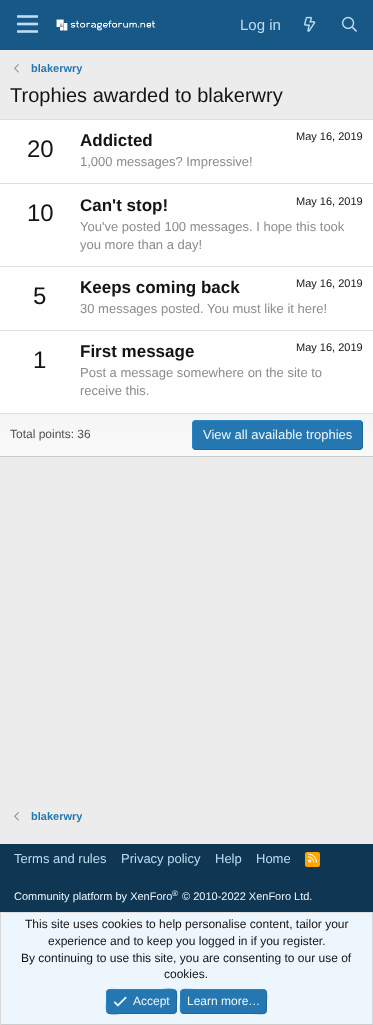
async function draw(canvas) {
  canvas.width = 373;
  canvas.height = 1025;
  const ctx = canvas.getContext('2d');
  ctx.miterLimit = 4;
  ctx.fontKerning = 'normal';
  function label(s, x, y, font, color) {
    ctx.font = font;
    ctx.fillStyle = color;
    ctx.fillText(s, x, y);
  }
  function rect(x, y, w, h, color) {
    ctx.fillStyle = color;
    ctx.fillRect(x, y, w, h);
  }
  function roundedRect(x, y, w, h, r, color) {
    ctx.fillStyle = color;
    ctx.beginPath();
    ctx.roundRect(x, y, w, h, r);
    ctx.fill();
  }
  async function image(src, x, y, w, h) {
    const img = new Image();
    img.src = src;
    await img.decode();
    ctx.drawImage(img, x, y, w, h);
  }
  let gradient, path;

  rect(0, 0, 373, 1025, '#ececec');
  rect(0, 0, 373, 50, '#185886');
  await image('assets/img1.png', 17, 15, 21, 18);
  await image('assets/img2.png', 56, 19, 100, 12);
  label('Log in', 240, 30, '15px Liberation Sans', '#bcdef5');
  await image('assets/img3.png', 304, 16, 12, 16);
  await image('assets/img4.png', 342, 16, 15, 16);
  await image('assets/img5.png', 14, 64, 5, 9);
  label('blakerwry', 31, 72, 'bold 11px Liberation Sans', '#2577b1');
  label('Trophies awarded to blakerwry', 10, 102, '20px Liberation Sans', '#141414');
  rect(0, 120, 373, 293, '#fefefe');
  rect(0, 119, 373, 1, '#dfdfdf');
  rect(0, 456, 373, 1, '#cbcbcb');
  label('20', 27, 157, '24px Liberation Sans', '#141414');
  label('Addicted', 80, 146, 'bold 17px Liberation Sans', '#141414');
  label('May 16, 2019', 296, 140, '11px Liberation Sans', '#141414');
  label('1,000 messages? Impressive!', 80, 166, '13px Liberation Sans', '#8c8c8c');
  rect(0, 183, 373, 1, '#dfdfdf');
  label('10', 27, 221, '24px Liberation Sans', '#141414');
  label('Can\'t stop!', 80, 211, 'bold 17px Liberation Sans', '#141414');
  label('May 16, 2019', 296, 205, '11px Liberation Sans', '#141414');
  label('You\'ve posted 100 messages. I hope this took', 80, 231, '13px Liberation Sans', '#8c8c8c');
  label('you more than a day!', 80, 249, '13px Liberation Sans', '#8c8c8c');
  rect(0, 266, 373, 1, '#dfdfdf');
  label('5', 33, 304, '24px Liberation Sans', '#141414');
  label('Keeps coming back', 80, 293, 'bold 17px Liberation Sans', '#141414');
  label('May 16, 2019', 296, 287, '11px Liberation Sans', '#141414');
  label('30 messages posted. You must like it here!', 80, 313, '13px Liberation Sans', '#8c8c8c');
  rect(0, 330, 373, 1, '#dfdfdf');
  label('1', 33, 368, '24px Liberation Sans', '#141414');
  label('First message', 80, 357, 'bold 17px Liberation Sans', '#141414');
  label('May 16, 2019', 296, 351, '11px Liberation Sans', '#141414');
  label('Post a message somewhere on the site to', 80, 377, '13px Liberation Sans', '#8c8c8c');
  label('receive this.', 80, 395, '13px Liberation Sans', '#8c8c8c');
  gradient = ctx.createLinearGradient(187, 414, 187, 456);
  gradient.addColorStop(0, '#f5f5f5');
  gradient.addColorStop(1, '#fafafa');
  ctx.fillStyle = gradient;
  ctx.fillRect(0, 414, 373, 42);
  rect(0, 413, 373, 1, '#dfdfdf');
  label('Total points: 36', 10, 438, '12px Liberation Sans', '#505050');
  roundedRect(192, 420, 171, 30, 4, '#2577b1');
  path = new Path2D('M361.5 421.5C362 422 362.5 423 362.5 424V446C362.5 447 362 448 361.5 448.5C361 449 360 449.5 359 449.5H196C195 449.5 194 449 193.5 448.5');
  ctx.strokeStyle = '#21699c';
  ctx.stroke(path);
  path = new Path2D('M193.5 448.5C193 448 192.5 447 192.5 446V424C192.5 423 193 422 193.5 421.5C194 421 195 420.5 196 420.5H359C360 420.5 361 421 361.5 421.5');
  ctx.strokeStyle = '#2985c6';
  ctx.stroke(path);
  label('View all available trophies', 203, 439, '13px Liberation Sans', '#edf6fd');
  await image('assets/img5.png', 14, 812, 5, 9);
  label('blakerwry', 31, 820, 'bold 11px Liberation Sans', '#2577b1');
  rect(0, 844, 373, 68, '#0f3652');
  label('Terms and rules', 14, 863, '13px Liberation Sans', '#bcdef5');
  label('Privacy policy', 121, 863, '13px Liberation Sans', '#bcdef5');
  label('Help', 215, 863, '13px Liberation Sans', '#bcdef5');
  label('Home', 256, 863, '13px Liberation Sans', '#bcdef5');
  roundedRect(305, 852, 15, 15, 2, '#ffa500');
  await image('assets/img6.png', 308, 853, 10, 10);
  label('Community platform by XenForo', 14, 900, '11px Liberation Sans', '#edf6fd');
  label('®', 172, 896, '8px Liberation Sans', '#edf6fd');
  label('© 2010-2022 XenForo Ltd.', 182, 900, '11px Liberation Sans', '#edf6fd');
  rect(1, 913, 371, 111, '#edf6fd');
  rect(0, 912, 373, 1, '#dfdfdf');
  rect(372, 912, 1, 113, '#d8d8d8');
  rect(0, 1024, 373, 1, '#cbcbcb');
  rect(0, 912, 1, 113, '#d8d8d8');
  label('This site uses cookies to help personalise content, tailor your', 25, 928, '12px Liberation Sans', '#141414');
  label('experience and to keep you logged in if you register.', 48, 945, '12px Liberation Sans', '#141414');
  label('By continuing to use this site, you are consenting to our use of', 21, 962, '12px Liberation Sans', '#141414');
  label('cookies.', 164, 978, '12px Liberation Sans', '#141414');
  roundedRect(106, 989, 71, 25, 4, '#2577b1');
  path = new Path2D('M175.5 990.5C177.5 993 176.5 999 176.5 1001.5C176.5 1015.5 177.5 1013.5 162.5 1013.5H120.5C119.5 1013.5 110 1015 107.5 1012.5');
  ctx.strokeStyle = '#21699c';
  ctx.stroke(path);
  path = new Path2D('M107.5 1012.5C105.5 1010 106.5 1004 106.5 1001.5C106.5 987.5 105.5 989.5 120.5 989.5H162.5C163.5 989.5 173 988 175.5 990.5');
  ctx.strokeStyle = '#2985c6';
  ctx.stroke(path);
  await image('assets/img7.png', 113, 996, 14, 11);
  label('Accept', 133, 1005, '12px Liberation Sans', '#edf6fd');
  roundedRect(180, 989, 87, 25, 4, '#2577b1');
  path = new Path2D('M265.5 990.5C267.5 993 266.5 999 266.5 1001.5C266.5 1016.5 267 1013.5 250 1013.5H184L181.5 1012.5');
  ctx.strokeStyle = '#21699c';
  ctx.stroke(path);
  path = new Path2D('M181.5 1012.5C179.5 1010 180.5 1004 180.5 1001.5C180.5 986.5 180 989.5 197 989.5H263L265.5 990.5');
  ctx.strokeStyle = '#2985c6';
  ctx.stroke(path);
  label('Learn more…', 187, 1005, '12px Liberation Sans', '#edf6fd');
}

draw(document.querySelector('canvas'));
